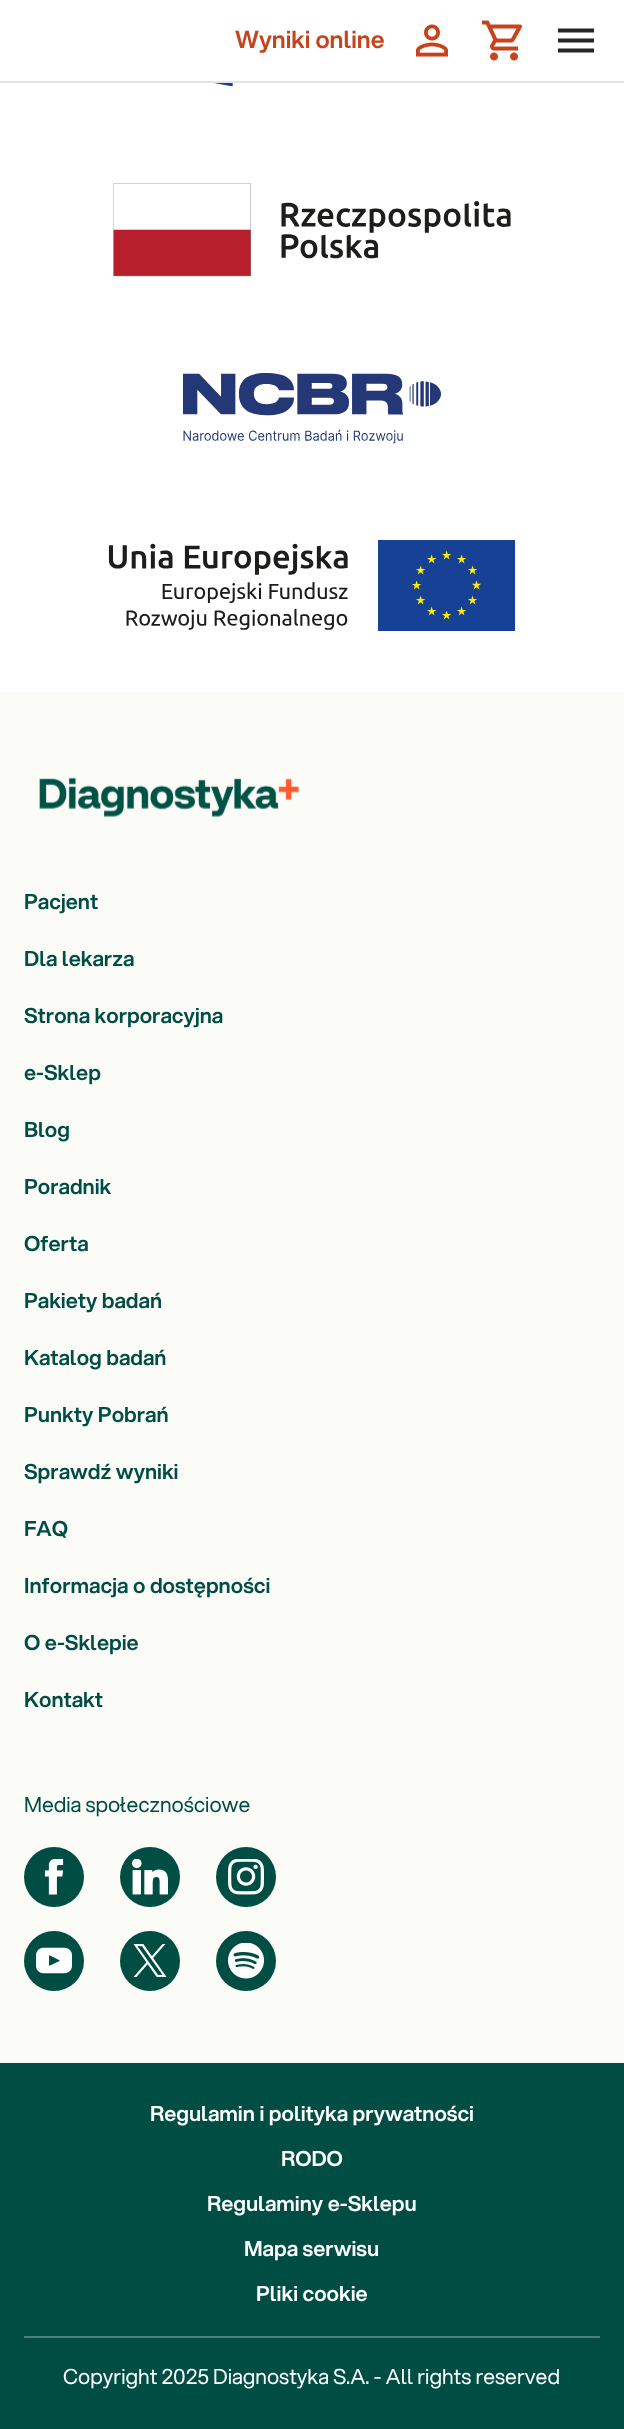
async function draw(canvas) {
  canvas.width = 624;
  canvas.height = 2429;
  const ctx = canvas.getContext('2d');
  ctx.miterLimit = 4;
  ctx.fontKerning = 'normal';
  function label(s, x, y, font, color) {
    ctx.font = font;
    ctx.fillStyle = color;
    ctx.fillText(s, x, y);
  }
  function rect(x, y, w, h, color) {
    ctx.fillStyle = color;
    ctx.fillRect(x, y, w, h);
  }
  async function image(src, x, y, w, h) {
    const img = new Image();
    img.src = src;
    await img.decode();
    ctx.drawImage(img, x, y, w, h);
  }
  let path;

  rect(0, 0, 624, 2429, '#fff');
  rect(0, 81, 624, 2, '#e4e4e5');
  label('Wyniki online', 235, 48, '600 24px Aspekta', '#c7431c');
  await image('assets/img1.png', 416, 24, 32, 33);
  await image('assets/img2.png', 482, 20, 40, 41);
  ctx.fillStyle = '#262626';
  path = new Path2D('M558 52.5H594V48.5H558ZM558 42.5H594V38.5H558ZM558 28.5V32.5H594V28.5Z');
  ctx.fill(path);
  await image('assets/img3.png', 214, 83, 19, 4);
  await image('assets/img4.png', 113, 183, 398, 94);
  await image('assets/img5.png', 183, 373, 258, 71);
  await image('assets/img6.png', 108, 540, 408, 91);
  rect(0, 692, 624, 1371, '#fbfbf8');
  await image('assets/img7.png', 39, 777, 260, 41);
  label('Pacjent', 24, 909, '600 21px Aspekta', '#004d44');
  label('Dla lekarza', 24, 966, '600 21px Aspekta', '#004d44');
  label('Strona korporacyjna', 24, 1023, '600 21px Aspekta', '#004d44');
  label('e-Sklep', 24, 1080, '600 21px Aspekta', '#004d44');
  label('Blog', 24, 1137, '600 21px Aspekta', '#004d44');
  label('Poradnik', 24, 1194, '600 21px Aspekta', '#004d44');
  label('Oferta', 24, 1251, '600 21px Aspekta', '#004d44');
  label('Pakiety badań', 24, 1308, '600 21px Aspekta', '#004d44');
  label('Katalog badań', 24, 1365, '600 21px Aspekta', '#004d44');
  label('Punkty Pobrań', 24, 1422, '600 21px Aspekta', '#004d44');
  label('Sprawdź wyniki', 24, 1479, '600 21px Aspekta', '#004d44');
  label('FAQ', 24, 1536, '600 21px Aspekta', '#004d44');
  label('Informacja o dostępności', 24, 1593, '600 21px Aspekta', '#004d44');
  label('O e-Sklepie', 24, 1650, '600 21px Aspekta', '#004d44');
  label('Kontakt', 24, 1707, '600 21px Aspekta', '#004d44');
  label('Media społecznościowe', 24, 1812, '21px Aspekta', '#004d44');
  ctx.beginPath();
  ctx.arc(54, 1877, 30, 0, 2 * Math.PI);
  ctx.fill();
  await image('assets/img8.png', 44, 1859, 20, 36);
  ctx.beginPath();
  ctx.arc(150, 1877, 30, 0, 2 * Math.PI);
  ctx.fill();
  await image('assets/img9.png', 132, 1859, 36, 36);
  ctx.beginPath();
  ctx.arc(246, 1877, 30, 0, 2 * Math.PI);
  ctx.fill();
  await image('assets/img10.png', 228, 1859, 36, 36);
  ctx.beginPath();
  ctx.arc(54, 1961, 30, 0, 2 * Math.PI);
  ctx.fill();
  await image('assets/img11.png', 36, 1947, 36, 27);
  ctx.beginPath();
  ctx.arc(150, 1961, 30, 0, 2 * Math.PI);
  ctx.fill();
  await image('assets/img12.png', 133, 1944, 34, 33);
  ctx.beginPath();
  ctx.arc(246, 1961, 30, 0, 2 * Math.PI);
  ctx.fill();
  await image('assets/img13.png', 228, 1943, 36, 36);
  rect(0, 2063, 624, 366, '#004d44');
  label('Regulamin i polityka prywatności', 150, 2121, '600 21px Aspekta', '#fff');
  label('RODO', 281, 2166, '600 21px Aspekta', '#fff');
  label('Regulaminy e-Sklepu', 207, 2211, '600 21px Aspekta', '#fff');
  label('Mapa serwisu', 244, 2256, '600 21px Aspekta', '#fff');
  label('Pliki cookie', 256, 2301, '600 21px Aspekta', '#fff');
  rect(24, 2336, 576, 2, '#4b817a');
  label('Copyright 2025 Diagnostyka S.A. - All rights reserved', 63, 2384, '21px Aspekta', '#fff');
}

draw(document.querySelector('canvas'));
